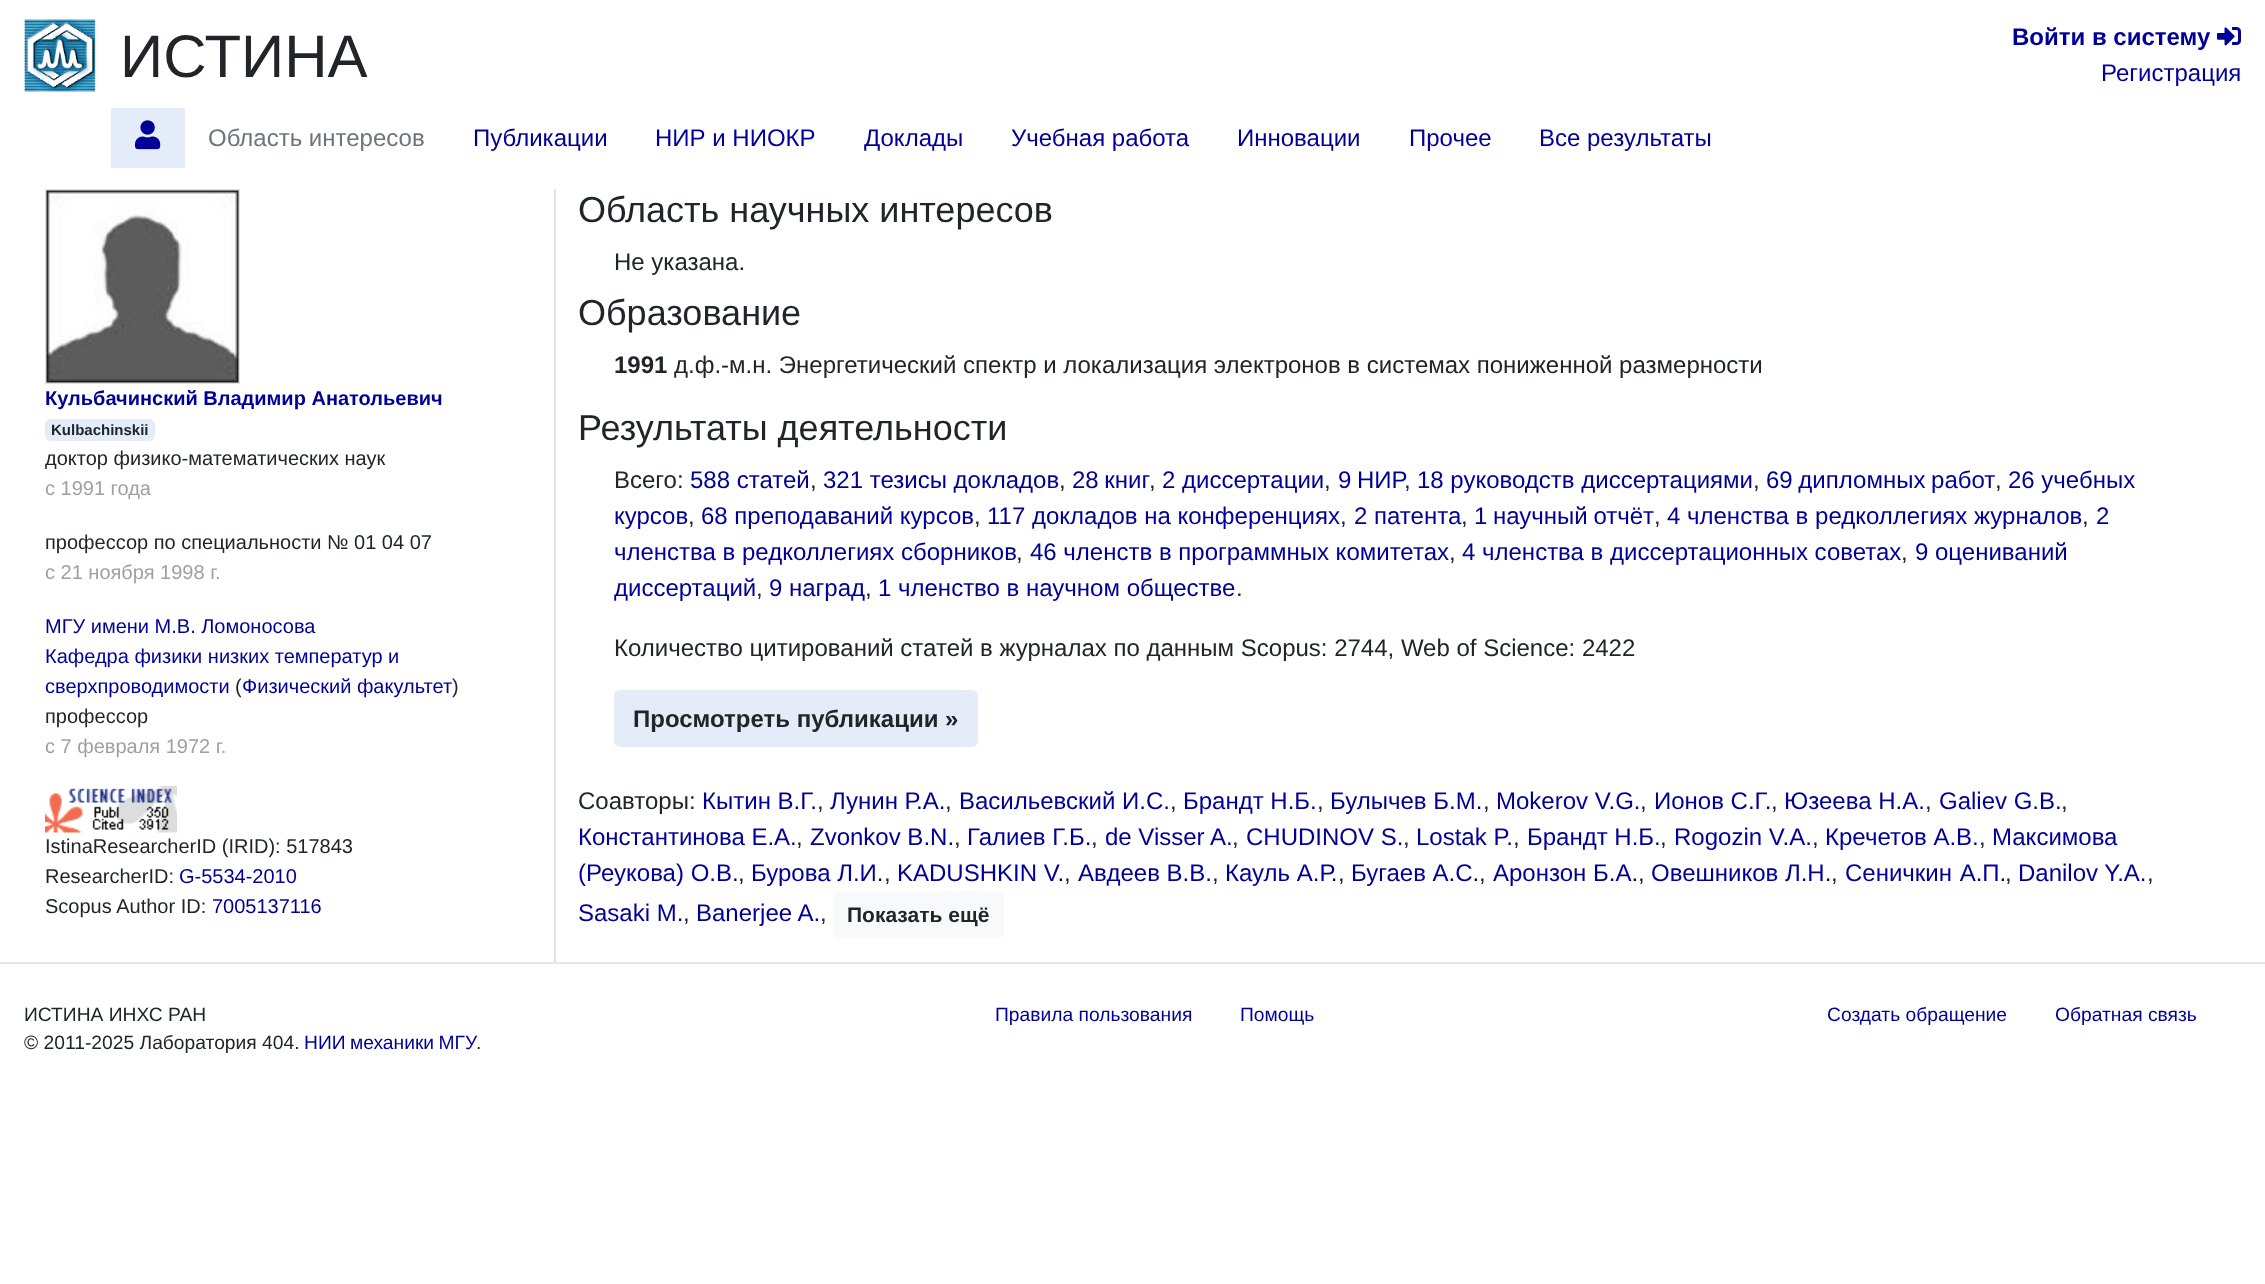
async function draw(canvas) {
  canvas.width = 2265;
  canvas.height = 1284;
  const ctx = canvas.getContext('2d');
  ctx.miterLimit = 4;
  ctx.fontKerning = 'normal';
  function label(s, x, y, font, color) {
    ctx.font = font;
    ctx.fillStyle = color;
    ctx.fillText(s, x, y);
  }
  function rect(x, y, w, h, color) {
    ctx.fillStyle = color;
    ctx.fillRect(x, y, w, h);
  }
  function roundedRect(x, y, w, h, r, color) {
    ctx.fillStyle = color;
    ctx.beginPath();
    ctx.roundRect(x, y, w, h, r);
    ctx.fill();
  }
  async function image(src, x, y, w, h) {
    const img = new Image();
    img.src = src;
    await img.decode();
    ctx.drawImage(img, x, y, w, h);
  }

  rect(0, 0, 2265, 1284, '#fff');
  await image('assets/img1.png', 24, 19, 72, 73);
  label('ИСТИНА', 120, 77, '60px Liberation Sans', '#212529');
  label('Войти в систему', 2012, 45, 'bold 24px Liberation Sans', '#009');
  await image('assets/img2.png', 2217, 27, 24, 19);
  label('Регистрация', 2101, 81, '24px Liberation Sans', '#009');
  rect(111, 108, 74, 60, '#e5ecf9');
  await image('assets/img3.png', 135, 120, 26, 30);
  label('Область интересов', 208, 146, '24px Liberation Sans', '#6c757d');
  label('Публикации', 473, 146, '24px Liberation Sans', '#009');
  label('НИР и НИОКР', 655, 146, '24px Liberation Sans', '#009');
  label('Доклады', 864, 146, '24px Liberation Sans', '#009');
  label('Учебная работа', 1011, 146, '24px Liberation Sans', '#009');
  label('Инновации', 1237, 146, '24px Liberation Sans', '#009');
  label('Прочее', 1409, 146, '24px Liberation Sans', '#009');
  label('Все результаты', 1539, 146, '24px Liberation Sans', '#009');
  rect(554, 189, 2, 773, '#dee2e6');
  ctx.strokeStyle = '#dee2e6';
  ctx.lineWidth = 2;
  ctx.strokeRect(46, 190, 193, 193);
  await image('assets/img4.png', 46, 190, 193, 193);
  label('Кульбачинский Владимир Анатольевич', 45, 405, 'bold 20px Liberation Sans', '#009');
  roundedRect(45, 419, 110, 22, 6, '#e5ecf9');
  label('Kulbachinskii', 51, 435, 'bold 15px Liberation Sans', '#212529');
  label('доктор физико-математических наук', 45, 465, '20px Liberation Sans', '#212529');
  label('с 1991 года', 45, 495, '20px Liberation Sans', '#a0a0a0');
  label('профессор по специальности № 01 04 07', 45, 549, '20px Liberation Sans', '#212529');
  label('с 21 ноября 1998 г.', 45, 579, '20px Liberation Sans', '#a0a0a0');
  label('МГУ имени М.В. Ломоносова', 45, 633, '20px Liberation Sans', '#009');
  label('Кафедра физики низких температур и', 45, 663, '20px Liberation Sans', '#009');
  label('сверхпроводимости', 45, 693, '20px Liberation Sans', '#009');
  label('(', 235, 693, '20px Liberation Sans', '#212529');
  label('Физический факультет', 242, 693, '20px Liberation Sans', '#009');
  label(')', 452, 693, '20px Liberation Sans', '#212529');
  label('профессор', 45, 723, '20px Liberation Sans', '#212529');
  label('с 7 февраля 1972 г.', 45, 753, '20px Liberation Sans', '#a0a0a0');
  await image('assets/img5.png', 45, 786, 132, 47);
  label('IstinaResearcherID (IRID): 517843', 45, 853, '20px Liberation Sans', '#212529');
  label('ResearcherID:', 45, 883, '20px Liberation Sans', '#212529');
  label('G-5534-2010', 179, 883, '20px Liberation Sans', '#009');
  label('Scopus Author ID:', 45, 913, '20px Liberation Sans', '#212529');
  label('7005137116', 212, 913, '20px Liberation Sans', '#009');
  label('Область научных интересов', 578, 222, '36px Liberation Sans', '#212529');
  label('Не указана.', 614, 270, '24px Liberation Sans', '#212529');
  label('Образование', 578, 325, '36px Liberation Sans', '#212529');
  label('1991', 614, 373, 'bold 24px Liberation Sans', '#212529');
  label('д.ф.-м.н. Энергетический спектр и локализация электронов в системах пониженной размерности', 674, 373, '24px Liberation Sans', '#212529');
  label('Результаты деятельности', 578, 440, '36px Liberation Sans', '#212529');
  label('Всего:', 614, 488, '24px Liberation Sans', '#212529');
  label('588 статей', 690, 488, '24px Liberation Sans', '#009');
  label(',', 810, 488, '24px Liberation Sans', '#212529');
  label('321 тезисы докладов', 823, 488, '24px Liberation Sans', '#009');
  label(',', 1059, 488, '24px Liberation Sans', '#212529');
  ctx.wordSpacing = '-1px';
  label('28 книг', 1072, 488, '24px Liberation Sans', '#009');
  ctx.wordSpacing = '0px';
  label(',', 1149, 488, '24px Liberation Sans', '#212529');
  label('2 диссертации', 1162, 488, '24px Liberation Sans', '#009');
  label(',', 1324, 488, '24px Liberation Sans', '#212529');
  ctx.wordSpacing = '-1px';
  label('9 НИР', 1338, 488, '24px Liberation Sans', '#009');
  ctx.wordSpacing = '0px';
  label(',', 1404, 488, '24px Liberation Sans', '#212529');
  label('18 руководств диссертациями', 1417, 488, '24px Liberation Sans', '#009');
  label(',', 1753, 488, '24px Liberation Sans', '#212529');
  ctx.wordSpacing = '-1px';
  label('69 дипломных работ', 1766, 488, '24px Liberation Sans', '#009');
  ctx.wordSpacing = '0px';
  label(',', 1995, 488, '24px Liberation Sans', '#212529');
  label('26 учебных', 2008, 488, '24px Liberation Sans', '#009');
  label('курсов', 614, 524, '24px Liberation Sans', '#009');
  label(',', 688, 524, '24px Liberation Sans', '#212529');
  label('68 преподаваний курсов', 701, 524, '24px Liberation Sans', '#009');
  label(',', 974, 524, '24px Liberation Sans', '#212529');
  label('117 докладов на конференциях', 987, 524, '24px Liberation Sans', '#009');
  label(',', 1340, 524, '24px Liberation Sans', '#212529');
  label('2 патента', 1354, 524, '24px Liberation Sans', '#009');
  label(',', 1461, 524, '24px Liberation Sans', '#212529');
  ctx.wordSpacing = '-1px';
  label('1 научный отчёт', 1474, 524, '24px Liberation Sans', '#009');
  ctx.wordSpacing = '0px';
  label(',', 1654, 524, '24px Liberation Sans', '#212529');
  label('4 членства в редколлегиях журналов', 1667, 524, '24px Liberation Sans', '#009');
  label(',', 2082, 524, '24px Liberation Sans', '#212529');
  label('2', 2096, 524, '24px Liberation Sans', '#009');
  label('членства в редколлегиях сборников', 614, 560, '24px Liberation Sans', '#009');
  label(',', 1016, 560, '24px Liberation Sans', '#212529');
  label('46 членств в программных комитетах', 1030, 560, '24px Liberation Sans', '#009');
  label(',', 1449, 560, '24px Liberation Sans', '#212529');
  label('4 членства в диссертационных советах', 1462, 560, '24px Liberation Sans', '#009');
  label(',', 1901, 560, '24px Liberation Sans', '#212529');
  label('9 оцениваний', 1915, 560, '24px Liberation Sans', '#009');
  label('диссертаций', 614, 596, '24px Liberation Sans', '#009');
  label(',', 756, 596, '24px Liberation Sans', '#212529');
  label('9 наград', 769, 596, '24px Liberation Sans', '#009');
  label(',', 865, 596, '24px Liberation Sans', '#212529');
  label('1 членство в научном обществе', 878, 596, '24px Liberation Sans', '#009');
  label('.', 1236, 596, '24px Liberation Sans', '#212529');
  label('Количество цитирований статей в журналах по данным Scopus: 2744, Web of Science: 2422', 614, 656, '24px Liberation Sans', '#212529');
  ctx.fillStyle = '#e5ecf9';
  ctx.beginPath();
  ctx.roundRect(615, 691, 362, 55, 5);
  ctx.fill();
  ctx.strokeStyle = '#e5ecf9';
  ctx.stroke();
  label('Просмотреть публикации »', 633, 727, 'bold 24px Liberation Sans', '#212529');
  label('Соавторы:', 578, 809, '24px Liberation Sans', '#212529');
  label('Кытин В.Г.', 702, 809, '24px Liberation Sans', '#009');
  label(',', 817, 809, '24px Liberation Sans', '#212529');
  label('Лунин Р.А.', 830, 809, '24px Liberation Sans', '#009');
  label(',', 945, 809, '24px Liberation Sans', '#212529');
  label('Васильевский И.С.', 959, 809, '24px Liberation Sans', '#009');
  label(',', 1170, 809, '24px Liberation Sans', '#212529');
  label('Брандт Н.Б.', 1183, 809, '24px Liberation Sans', '#009');
  label(',', 1317, 809, '24px Liberation Sans', '#212529');
  label('Булычев Б.М.', 1330, 809, '24px Liberation Sans', '#009');
  label(',', 1483, 809, '24px Liberation Sans', '#212529');
  label('Mokerov V.G.', 1496, 809, '24px Liberation Sans', '#009');
  label(',', 1640, 809, '24px Liberation Sans', '#212529');
  label('Ионов С.Г.', 1654, 809, '24px Liberation Sans', '#009');
  label(',', 1771, 809, '24px Liberation Sans', '#212529');
  label('Юзеева Н.А.', 1784, 809, '24px Liberation Sans', '#009');
  label(',', 1925, 809, '24px Liberation Sans', '#212529');
  label('Galiev G.B.', 1939, 809, '24px Liberation Sans', '#009');
  label(',', 2061, 809, '24px Liberation Sans', '#212529');
  label('Константинова Е.А.', 578, 845, '24px Liberation Sans', '#009');
  label(',', 796, 845, '24px Liberation Sans', '#212529');
  label('Zvonkov B.N.', 810, 845, '24px Liberation Sans', '#009');
  label(',', 954, 845, '24px Liberation Sans', '#212529');
  label('Галиев Г.Б.', 967, 845, '24px Liberation Sans', '#009');
  label(',', 1091, 845, '24px Liberation Sans', '#212529');
  label('de Visser A.', 1105, 845, '24px Liberation Sans', '#009');
  label(',', 1232, 845, '24px Liberation Sans', '#212529');
  label('CHUDINOV S.', 1246, 845, '24px Liberation Sans', '#009');
  label(',', 1403, 845, '24px Liberation Sans', '#212529');
  label('Lostak P.', 1416, 845, '24px Liberation Sans', '#009');
  label(',', 1513, 845, '24px Liberation Sans', '#212529');
  label('Брандт Н.Б.', 1527, 845, '24px Liberation Sans', '#009');
  label(',', 1660, 845, '24px Liberation Sans', '#212529');
  label('Rogozin V.A.', 1674, 845, '24px Liberation Sans', '#009');
  label(',', 1812, 845, '24px Liberation Sans', '#212529');
  label('Кречетов А.В.', 1825, 845, '24px Liberation Sans', '#009');
  label(',', 1979, 845, '24px Liberation Sans', '#212529');
  label('Максимова', 1992, 845, '24px Liberation Sans', '#009');
  label('(Реукова) О.В.', 578, 881, '24px Liberation Sans', '#009');
  label(',', 738, 881, '24px Liberation Sans', '#212529');
  label('Бурова Л.И.', 751, 881, '24px Liberation Sans', '#009');
  label(',', 884, 881, '24px Liberation Sans', '#212529');
  label('KADUSHKIN V.', 897, 881, '24px Liberation Sans', '#009');
  label(',', 1064, 881, '24px Liberation Sans', '#212529');
  label('Авдеев В.В.', 1078, 881, '24px Liberation Sans', '#009');
  label(',', 1212, 881, '24px Liberation Sans', '#212529');
  label('Кауль А.Р.', 1225, 881, '24px Liberation Sans', '#009');
  label(',', 1338, 881, '24px Liberation Sans', '#212529');
  label('Бугаев А.С.', 1351, 881, '24px Liberation Sans', '#009');
  label(',', 1479, 881, '24px Liberation Sans', '#212529');
  label('Аронзон Б.А.', 1493, 881, '24px Liberation Sans', '#009');
  label(',', 1638, 881, '24px Liberation Sans', '#212529');
  label('Овешников Л.Н.', 1651, 881, '24px Liberation Sans', '#009');
  label(',', 1831, 881, '24px Liberation Sans', '#212529');
  ctx.wordSpacing = '1px';
  label('Сеничкин A.П.', 1845, 881, '24px Liberation Sans', '#009');
  ctx.wordSpacing = '0px';
  label(',', 2005, 881, '24px Liberation Sans', '#212529');
  label('Danilov Y.A.', 2018, 881, '24px Liberation Sans', '#009');
  label(',', 2147, 881, '24px Liberation Sans', '#212529');
  label('Sasaki M.', 578, 921, '24px Liberation Sans', '#009');
  label(',', 683, 921, '24px Liberation Sans', '#212529');
  label('Banerjee A.', 696, 921, '24px Liberation Sans', '#009');
  label(',', 820, 921, '24px Liberation Sans', '#212529');
  roundedRect(834, 891, 170, 47, 5, '#f8f9fa');
  label('Показать ещё', 847, 922, 'bold 21px Liberation Sans', '#212529');
  rect(0, 962, 2265, 2, '#e6e6e6');
  label('ИСТИНА ИНХС РАН', 24, 1021, '19.25px Liberation Sans', '#212529');
  label('© 2011-2025 Лаборатория 404.', 24, 1049, '19.25px Liberation Sans', '#212529');
  ctx.wordSpacing = '-1px';
  label('НИИ механики МГУ', 304, 1049, '19.25px Liberation Sans', '#009');
  ctx.wordSpacing = '0px';
  label('.', 476, 1049, '19.25px Liberation Sans', '#212529');
  label('Правила пользования', 995, 1021, '19.25px Liberation Sans', '#009');
  label('Помощь', 1240, 1021, '19.25px Liberation Sans', '#009');
  label('Создать обращение', 1827, 1021, '19.25px Liberation Sans', '#009');
  label('Обратная связь', 2055, 1021, '19.25px Liberation Sans', '#009');
}

draw(document.querySelector('canvas'));
